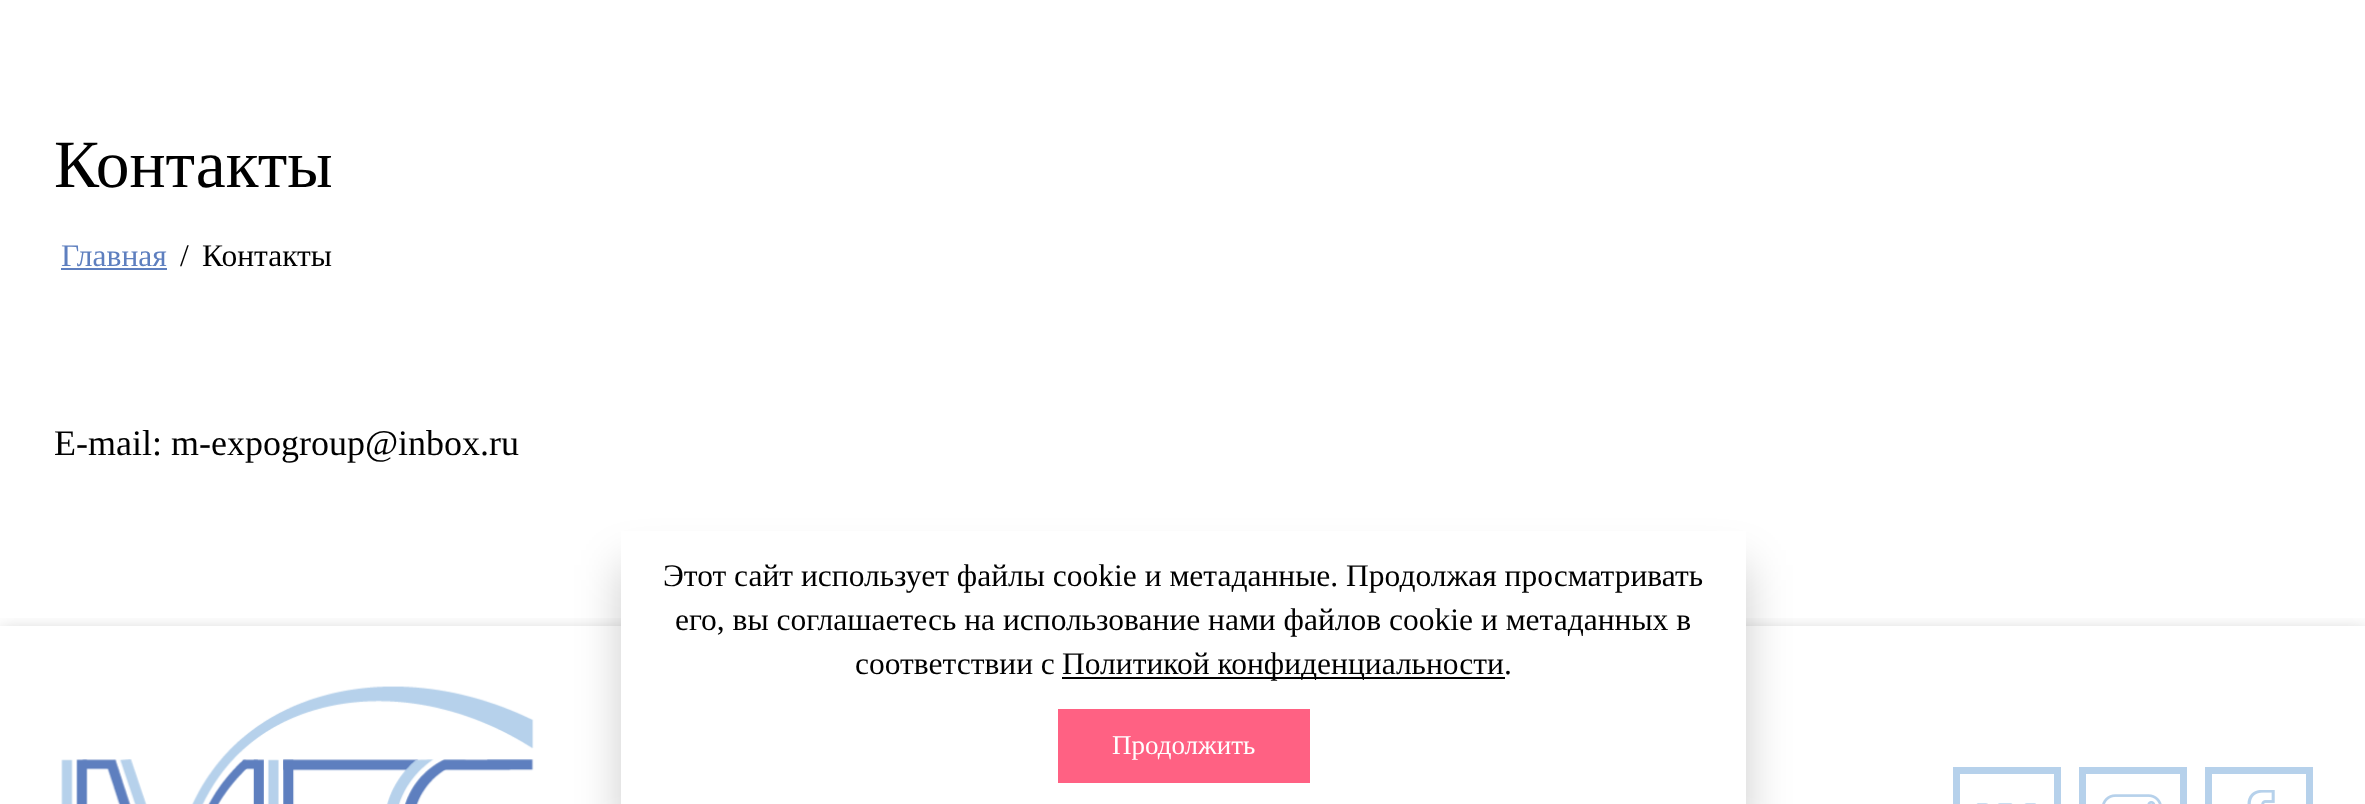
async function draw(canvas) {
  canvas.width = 2365;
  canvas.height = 804;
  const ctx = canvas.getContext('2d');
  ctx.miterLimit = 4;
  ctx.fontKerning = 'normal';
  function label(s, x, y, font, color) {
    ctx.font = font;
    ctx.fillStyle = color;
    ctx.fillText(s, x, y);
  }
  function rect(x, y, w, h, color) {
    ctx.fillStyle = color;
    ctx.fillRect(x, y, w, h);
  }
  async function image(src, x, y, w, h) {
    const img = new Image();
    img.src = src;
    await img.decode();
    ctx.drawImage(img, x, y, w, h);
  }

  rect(0, 0, 2365, 804, '#fff');
  label('Контакты', 54, 187, '67.5px Liberation Serif', '#000');
  label('Главная', 61, 266, '31.5px Liberation Serif', '#5e7fbf');
  rect(61, 268, 106, 2, '#5e7fbf');
  label('/', 180, 266, '31.5px Liberation Serif', '#000');
  label('Контакты', 202, 266, '31.5px Liberation Serif', '#000');
  label('E-mail: m-expogroup@inbox.ru', 54, 455, '36px Liberation Serif', '#000');
  ctx.fillStyle = '#00000033';
  ctx.filter = 'blur(22.5px)';
  ctx.beginPath();
  ctx.rect(621, 565, 1125, 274);
  ctx.fill();
  ctx.filter = 'none';
  ctx.save();
  ctx.beginPath();
  ctx.rect(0, 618, 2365, 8);
  ctx.clip();
  ctx.filter = 'blur(9px)';
  ctx.beginPath();
  ctx.rect(0, 630, 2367, 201);
  ctx.fill();
  ctx.filter = 'none';
  ctx.restore();
  rect(621, 531, 1125, 273, '#fff');
  label('Этот сайт использует файлы cookie и метаданные. Продолжая просматривать', 663, 586, '31.5px Liberation Serif', '#000');
  label('его, вы соглашаетесь на использование нами файлов cookie и метаданных в', 675, 630, '31.5px Liberation Serif', '#000');
  label('соответствии с', 855, 674, '31.5px Liberation Serif', '#000');
  rect(1062, 677, 443, 2, '#000');
  label('Политикой конфиденциальности.', 1062, 674, '31.5px Liberation Serif', '#000');
  rect(1058, 709, 252, 74, '#ff6183');
  label('Продолжить', 1112, 754, '27px Liberation Serif', '#fff');
  await image('assets/img1.png', 61, 686, 473, 118);
  ctx.strokeStyle = '#b6d1eb';
  ctx.lineWidth = 7;
  ctx.strokeRect(1956.5, 770.5, 101, 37);
  await image('assets/img2.png', 1976, 803, 60, 1);
  ctx.strokeRect(2082.5, 770.5, 101, 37);
  await image('assets/img3.png', 2102, 794, 60, 10);
  ctx.strokeRect(2208.5, 770.5, 101, 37);
  await image('assets/img4.png', 2247, 790, 28, 14);
}

draw(document.querySelector('canvas'));
